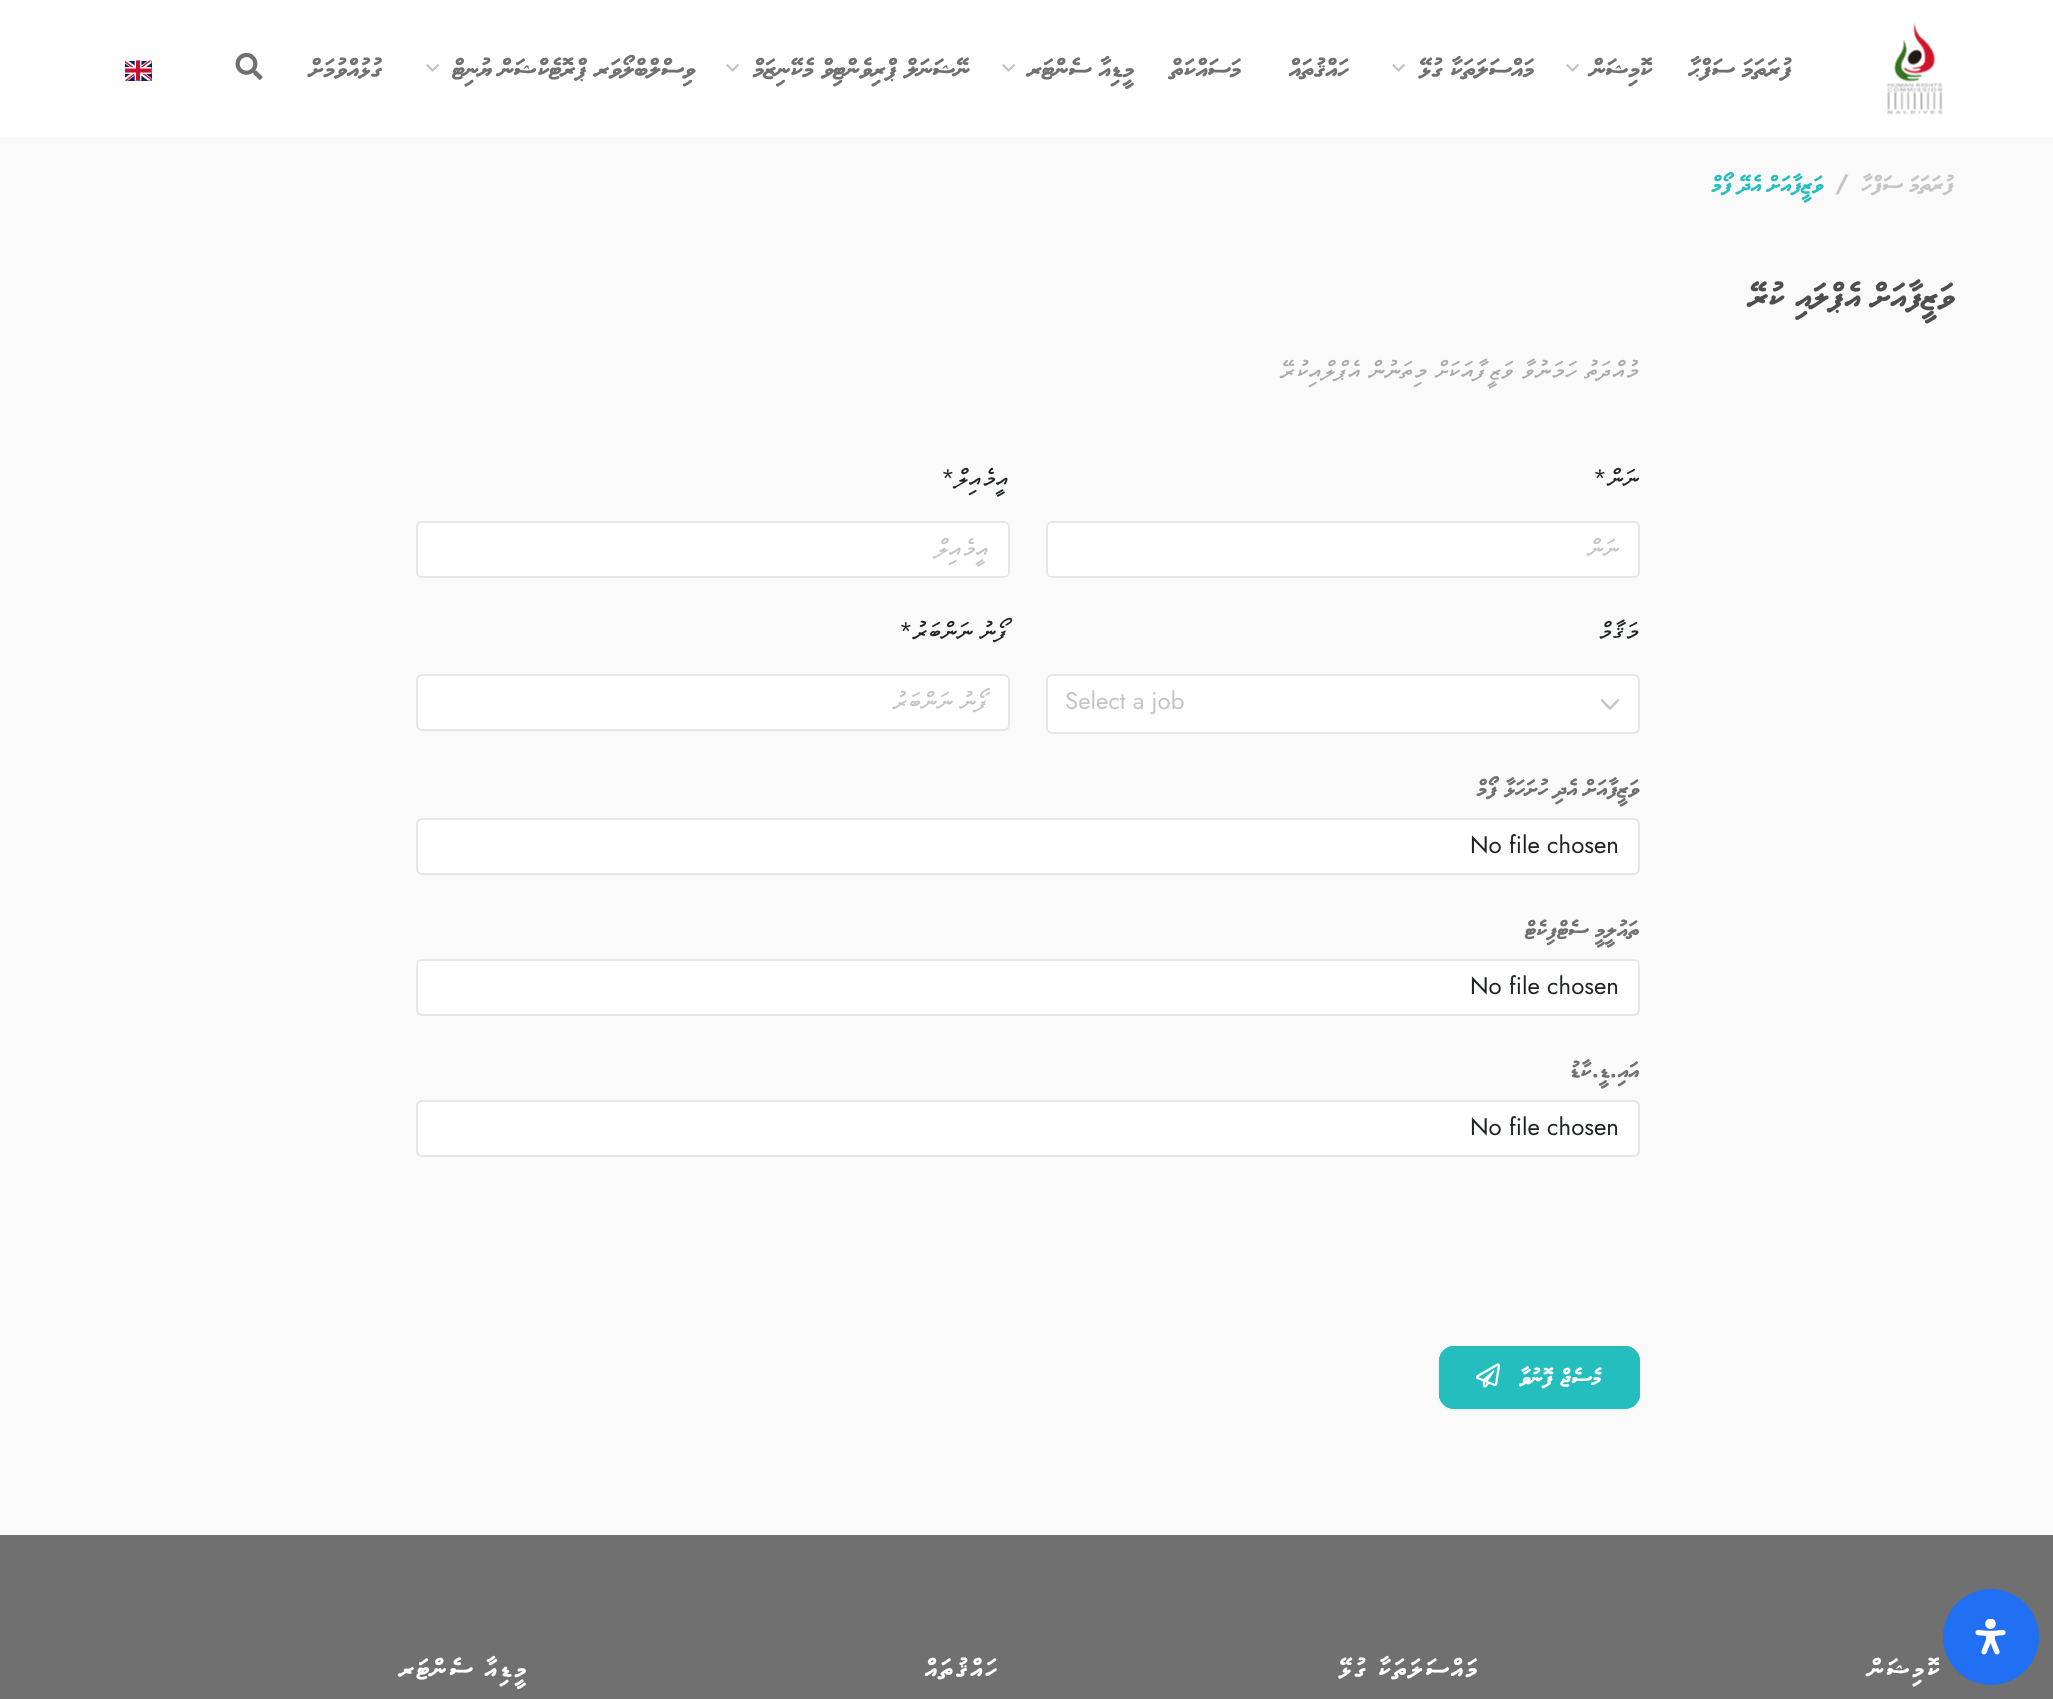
async function draw(canvas) {
  canvas.width = 2053;
  canvas.height = 1699;
  const ctx = canvas.getContext('2d');
  ctx.miterLimit = 4;
  ctx.fontKerning = 'normal';
  function label(s, x, y, font, color) {
    ctx.font = font;
    ctx.fillStyle = color;
    ctx.fillText(s, x, y);
  }
  function rect(x, y, w, h, color) {
    ctx.fillStyle = color;
    ctx.fillRect(x, y, w, h);
  }
  function roundedRect(x, y, w, h, r, color) {
    ctx.fillStyle = color;
    ctx.beginPath();
    ctx.roundRect(x, y, w, h, r);
    ctx.fill();
  }
  async function image(src, x, y, w, h) {
    const img = new Image();
    img.src = src;
    await img.decode();
    ctx.drawImage(img, x, y, w, h);
  }
  let path;

  rect(0, 0, 2053, 1699, '#fafafa');
  rect(0, 0, 2053, 137, '#fff');
  await image('assets/img1.png', 1887, 22, 56, 93);
  ctx.wordSpacing = '-8px';
  ctx.direction = 'rtl';
  label('ފުރަތަމަ ސަފްޙާ', 1792, 76, '27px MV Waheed', '#707070');
  ctx.wordSpacing = '0px';
  label('ކޮމިޝަން', 1652, 76, '27px MV Waheed', '#707070');
  await image('assets/img2.png', 1566, 64, 13, 8);
  ctx.wordSpacing = '-8px';
  label('މައްސަލަތަކާ ގުޅޭ', 1534, 76, '27px MV Waheed', '#707070');
  await image('assets/img2.png', 1392, 64, 13, 8);
  ctx.wordSpacing = '0px';
  label('ހައްޤުތައް', 1349, 76, '27px MV Waheed', '#707070');
  label('މަސައްކަތް', 1241, 76, '27px MV Waheed', '#707070');
  ctx.wordSpacing = '-8px';
  label('މީޑިއާ ސެންޓަރ', 1134, 76, '27px MV Waheed', '#707070');
  await image('assets/img2.png', 1002, 64, 13, 8);
  label('ނޭޝަނަލް ޕްރިވެންޓިވް މެކޭނިޒަމް', 970, 76, '27px MV Waheed', '#707070');
  await image('assets/img2.png', 726, 64, 13, 8);
  label('ވިސްލްބްލޯވަރ ޕްރޮޓެކްޝަން ޔުނިޓް', 695, 76, '27px MV Waheed', '#707070');
  await image('assets/img2.png', 426, 64, 13, 8);
  ctx.wordSpacing = '0px';
  label('ގުޅުއްވުމަށް', 382, 76, '27px MV Waheed', '#707070');
  await image('assets/img3.png', 235, 52, 28, 28);
  await image('assets/img4.png', 125, 60, 27, 21);
  ctx.wordSpacing = '-7px';
  label('ފުރަތަމަ ސަފްހާ', 1954, 191, '24px MV Waheed', '#c5c5c5');
  ctx.wordSpacing = '0px';
  ctx.direction = 'ltr';
  label('/', 1835, 191, '600 24px Jost', '#c5c5c5');
  ctx.wordSpacing = '-7px';
  ctx.direction = 'rtl';
  label('ވަޒީފާއަށް އެދޭ ފޯމް', 1823, 191, '24px MV Waheed', '#25bebf');
  ctx.wordSpacing = '-10px';
  label('ވަޒީފާއަށް އެޕްލައި ކުރޭ', 1954, 306, '36px MV Waheed', '#4e4e4e');
  ctx.wordSpacing = '-4.5px';
  label('މުއްދަތު ހަމަނުވާ ވަޒީފާއަކަށް މިތަނުން އެޕްލްއިކުރޭ', 1639, 378, 'italic 24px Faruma', '#aaa');
  ctx.wordSpacing = '0px';
  label('ނަން', 1639, 486, 'italic 24px Faruma', '#212529');
  label('*', 1607, 486, '24px Jost', '#212529');
  ctx.fillStyle = '#fff';
  ctx.beginPath();
  ctx.roundRect(1047, 522, 592, 55, 5);
  ctx.fill();
  ctx.strokeStyle = '#e6e6e6';
  ctx.lineWidth = 2;
  ctx.stroke();
  label('ނަން', 1619, 556, 'italic 24px Faruma', '#c5c5c5');
  label('*', 955, 486, '24px Jost', '#212529');
  label('އީމެއިލް', 1009, 486, 'italic 24px Faruma', '#212529');
  ctx.fillStyle = '#fff';
  ctx.beginPath();
  ctx.roundRect(417, 522, 592, 55, 5);
  ctx.fill();
  ctx.stroke();
  label('އީމެއިލް', 989, 556, 'italic 24px Faruma', '#c5c5c5');
  label('މަޤާމް', 1639, 639, 'italic 24px Faruma', '#212529');
  ctx.fillStyle = '#fff';
  ctx.beginPath();
  ctx.roundRect(1047, 675, 592, 58, 5);
  ctx.fill();
  ctx.stroke();
  await image('assets/img5.png', 1600, 699, 20, 11);
  ctx.direction = 'ltr';
  label('Select a job', 1065, 709, '24px Jost', '#c5c5c5');
  ctx.wordSpacing = '-4.5px';
  ctx.direction = 'rtl';
  label('ފޯނު ނަންބަރު', 1009, 639, 'italic 24px Faruma', '#212529');
  ctx.wordSpacing = '0px';
  label('*', 913, 639, '24px Jost', '#212529');
  ctx.fillStyle = '#fff';
  ctx.beginPath();
  ctx.roundRect(417, 675, 592, 55, 5);
  ctx.fill();
  ctx.stroke();
  ctx.save();
  ctx.beginPath();
  ctx.rect(435, 684, 555, 39);
  ctx.clip();
  ctx.wordSpacing = '-4.5px';
  label('ފޯނު ނަންބަރު', 989, 709, 'italic 24px Faruma', '#c5c5c5');
  ctx.restore();
  ctx.wordSpacing = '-7px';
  label('ވަޒީފާއަށް އެދި ހުށަހަޅާ ފޯމް', 1639, 795, '24px MV Waheed', '#707070');
  ctx.fillStyle = '#fff';
  ctx.beginPath();
  ctx.roundRect(417, 819, 1222, 55, 5);
  ctx.fill();
  ctx.stroke();
  ctx.wordSpacing = '0px';
  ctx.direction = 'ltr';
  label('No file chosen', 1470, 853, '24px Jost', '#212529');
  ctx.wordSpacing = '-7px';
  ctx.direction = 'rtl';
  label('ތައުލީމީ ސެޓްފިކެޓް', 1639, 936, '24px MV Waheed', '#707070');
  ctx.fillStyle = '#fff';
  ctx.beginPath();
  ctx.roundRect(417, 960, 1222, 55, 5);
  ctx.fill();
  ctx.stroke();
  ctx.wordSpacing = '0px';
  ctx.direction = 'ltr';
  label('No file chosen', 1470, 994, '24px Jost', '#212529');
  ctx.direction = 'rtl';
  label('އައި', 1639, 1077, '24px MV Waheed', '#707070');
  label('.', 1617, 1077, '600 24px Jost', '#707070');
  label('ޑީ', 1610, 1077, '24px MV Waheed', '#707070');
  label('.', 1599, 1077, '600 24px Jost', '#707070');
  label('ކާޑު', 1591, 1077, '24px MV Waheed', '#707070');
  ctx.fillStyle = '#fff';
  ctx.beginPath();
  ctx.roundRect(417, 1101, 1222, 55, 5);
  ctx.fill();
  ctx.stroke();
  ctx.direction = 'ltr';
  label('No file chosen', 1470, 1135, '24px Jost', '#212529');
  ctx.fillStyle = '#00000012';
  ctx.filter = 'blur(1px)';
  ctx.beginPath();
  ctx.roundRect(1439, 1347, 201, 63, 15);
  ctx.fill();
  ctx.filter = 'none';
  roundedRect(1439, 1346, 201, 63, 15, '#25bebf');
  ctx.fillStyle = '#46c8c9';
  path = new Path2D('M1454 1348H1624C1632 1348 1638 1355 1638 1362C1638 1340 1608 1347 1596 1347H1482C1470 1347 1440 1340 1440 1362C1440 1355 1446 1348 1454 1348Z');
  ctx.fill(path);
  ctx.beginPath();
  ctx.roundRect(1440, 1347, 199, 61, 14);
  ctx.strokeStyle = '#25bebf';
  ctx.stroke();
  ctx.wordSpacing = '-7px';
  ctx.direction = 'rtl';
  label('މެސެޖް ފޮނުވާ', 1601, 1384, '24px MV Waheed', '#fff');
  await image('assets/img6.png', 1476, 1363, 25, 25);
  rect(0, 1535, 2053, 164, '#707070');
  ctx.fillStyle = '#216ff3';
  ctx.beginPath();
  ctx.arc(1991, 1637, 48, 0, 2 * Math.PI);
  ctx.fill();
  await image('assets/img7.png', 1975, 1619, 31, 36);
  ctx.letterSpacing = '3px';
  ctx.wordSpacing = '0px';
  label('ކޮމިޝަން', 1942, 1676, '27px MV Waheed', '#fff');
  ctx.wordSpacing = '-9px';
  label('މައްސަލަތަކާ ގުޅޭ', 1480, 1676, '27px MV Waheed', '#fff');
  ctx.wordSpacing = '0px';
  label('ހައްޤުތައް', 1000, 1676, '27px MV Waheed', '#fff');
  ctx.wordSpacing = '-9px';
  label('މީޑިއާ ސެންޓަރ', 529, 1676, '27px MV Waheed', '#fff');
}

draw(document.querySelector('canvas'));
